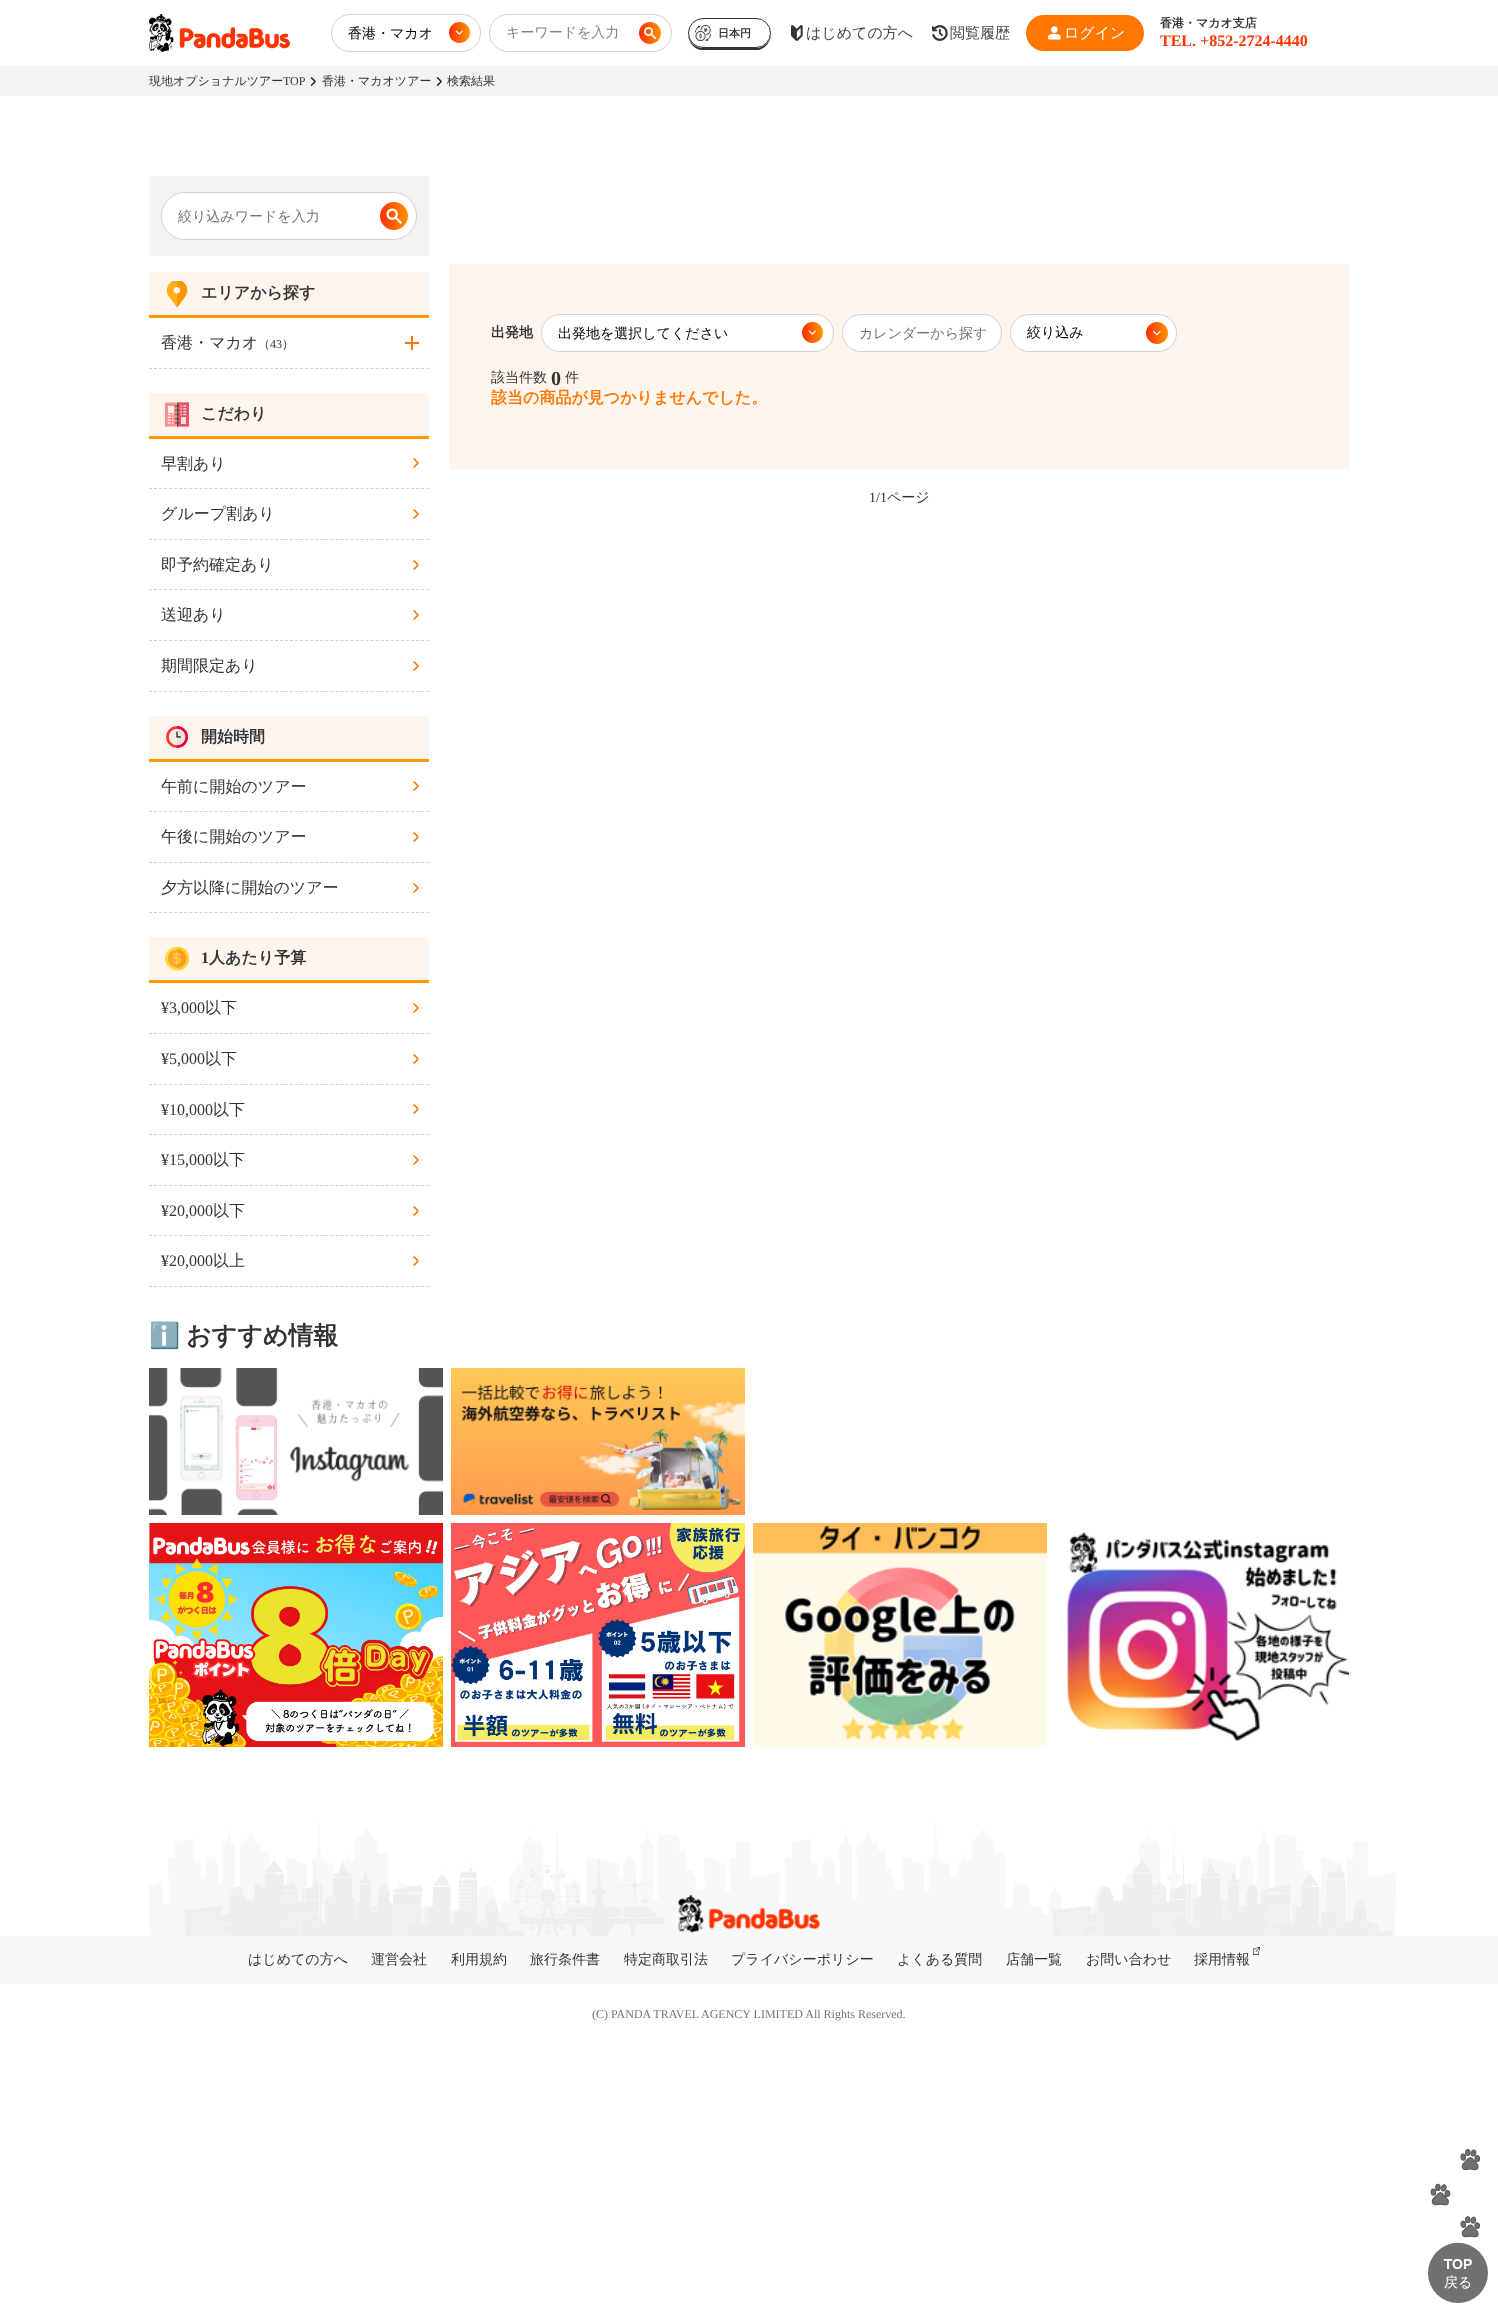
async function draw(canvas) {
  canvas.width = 1498;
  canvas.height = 2323;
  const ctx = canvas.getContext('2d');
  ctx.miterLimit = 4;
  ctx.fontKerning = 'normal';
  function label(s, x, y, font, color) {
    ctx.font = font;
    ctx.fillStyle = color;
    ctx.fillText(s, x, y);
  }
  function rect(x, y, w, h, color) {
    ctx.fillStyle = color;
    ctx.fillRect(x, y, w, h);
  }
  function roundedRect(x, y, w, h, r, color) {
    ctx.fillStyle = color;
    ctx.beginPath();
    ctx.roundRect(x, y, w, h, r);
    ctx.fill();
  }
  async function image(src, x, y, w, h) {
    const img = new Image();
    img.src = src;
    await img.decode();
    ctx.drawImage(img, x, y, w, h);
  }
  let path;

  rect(0, 0, 1498, 2323, '#fff');
  await image('assets/img1.png', 149, 14, 141, 38);
  await image('assets/img2.png', 449, 22, 21, 21);
  ctx.beginPath();
  ctx.roundRect(331.5, 14.5, 149, 37, 18.5);
  ctx.strokeStyle = '#d2d2d2';
  ctx.stroke();
  label('香港・マカオ', 348, 38, '500 14px WenQuanYi Zen Hei', '#000');
  ctx.beginPath();
  ctx.roundRect(489.5, 14.5, 182, 37, 18.5);
  ctx.stroke();
  label('キーワードを入力', 506, 37, '500 14px WenQuanYi Zen Hei', '#828282');
  await image('assets/img3.png', 639, 22, 22, 22);
  ctx.fillStyle = '#333';
  path = new Path2D('M688 34C688 41 693 48 700 50H759C766 48 771 41 771 34C770 42 764 48 756 48H703C695 48 689 42 688 34Z');
  ctx.fill(path);
  ctx.fillStyle = '#fff';
  ctx.beginPath();
  ctx.roundRect(688.5, 18.5, 82, 29, 14.5);
  ctx.fill();
  ctx.strokeStyle = '#333';
  ctx.stroke();
  await image('assets/img4.png', 695, 25, 16, 16);
  label('日本円', 718, 37, 'bold 11px WenQuanYi Zen Hei', '#333');
  await image('assets/img5.png', 791, 25, 12, 16);
  label('はじめての方へ', 806, 38, '500 15px WenQuanYi Zen Hei', '#444');
  await image('assets/img6.png', 932, 25, 16, 16);
  label('閲覧履歴', 950, 38, '500 15px WenQuanYi Zen Hei', '#444');
  ctx.fillStyle = '#ff7600';
  ctx.beginPath();
  ctx.roundRect(1027, 16, 116, 34, 17);
  ctx.fill();
  ctx.strokeStyle = '#ff7600';
  ctx.lineWidth = 2;
  ctx.stroke();
  await image('assets/img7.png', 1047, 26, 14, 14);
  label('ログイン', 1064, 38, '500 15px WenQuanYi Zen Hei', '#fff');
  label('香港・マカオ支店', 1160, 27, 'bold 12px WenQuanYi Zen Hei', '#333');
  label('TEL. +852-2724-4440', 1160, 46, 'bold 16px Liberation Serif', '#ff3200');
  rect(0, 66, 1498, 30, '#f3f3f3');
  label('現地オプショナルツアー', 149, 85, '500 12px WenQuanYi Zen Hei', '#333');
  label('TOP', 283, 85, '12px Liberation Serif', '#333');
  await image('assets/img8.png', 310, 77, 6, 9);
  label('香港・マカオツアー', 322, 85, '500 12px WenQuanYi Zen Hei', '#333');
  await image('assets/img8.png', 436, 77, 6, 9);
  label('検索結果', 447, 85, '500 12px WenQuanYi Zen Hei', '#333');
  rect(149, 176, 280, 80, '#f3f3f3');
  ctx.fillStyle = '#fff';
  ctx.beginPath();
  ctx.roundRect(161.5, 192.5, 255, 47, 23.5);
  ctx.fill();
  ctx.strokeStyle = '#d2d2d2';
  ctx.lineWidth = 1;
  ctx.stroke();
  label('絞り込みワードを入力', 178, 221, '500 14px WenQuanYi Zen Hei', '#757575');
  await image('assets/img9.png', 380, 202, 28, 28);
  rect(149, 272, 280, 43, '#fdf5ee');
  rect(149, 315, 280, 3, '#fe9700');
  await image('assets/img10.png', 166, 281, 22, 26);
  label('エリアから探す', 201, 298, 'bold 16px WenQuanYi Zen Hei', '#333');
  path = new Path2D('M149 368.5H429');
  ctx.setLineDash([3, 2.04]);
  ctx.stroke(path);
  label('香港・マカオ', 161, 348, '500 16px WenQuanYi Zen Hei', '#333');
  label('（', 258, 348, '500 12px WenQuanYi Zen Hei', '#333');
  label('43', 270, 348, '12px Liberation Serif', '#333');
  label('）', 282, 348, '500 12px WenQuanYi Zen Hei', '#333');
  rect(405, 342, 14, 2, '#ff7600');
  rect(411, 336, 2, 14, '#ff7600');
  rect(149, 393, 280, 43, '#fdf5ee');
  rect(149, 436, 280, 3, '#fe9700');
  await image('assets/img11.png', 165, 402, 24, 25);
  label('こだわり', 201, 419, 'bold 16px WenQuanYi Zen Hei', '#333');
  path = new Path2D('M149 488.5H429');
  ctx.stroke(path);
  label('早割あり', 161, 469, '500 16px WenQuanYi Zen Hei', '#333');
  await image('assets/img12.png', 413, 458, 6, 10);
  path = new Path2D('M149 539.5H429');
  ctx.stroke(path);
  label('グループ割あり', 161, 519, '500 16px WenQuanYi Zen Hei', '#333');
  await image('assets/img12.png', 413, 509, 6, 10);
  path = new Path2D('M149 589.5H429');
  ctx.stroke(path);
  label('即予約確定あり', 161, 570, '500 16px WenQuanYi Zen Hei', '#333');
  await image('assets/img12.png', 413, 560, 6, 10);
  path = new Path2D('M149 640.5H429');
  ctx.stroke(path);
  label('送迎あり', 161, 620, '500 16px WenQuanYi Zen Hei', '#333');
  await image('assets/img12.png', 413, 610, 6, 10);
  path = new Path2D('M149 691.5H429');
  ctx.stroke(path);
  label('期間限定あり', 161, 671, '500 16px WenQuanYi Zen Hei', '#333');
  await image('assets/img12.png', 413, 661, 6, 10);
  rect(149, 716, 280, 43, '#fdf5ee');
  rect(149, 759, 280, 3, '#fe9700');
  await image('assets/img13.png', 166, 726, 22, 22);
  label('開始時間', 201, 742, 'bold 16px WenQuanYi Zen Hei', '#333');
  path = new Path2D('M149 811.5H429');
  ctx.stroke(path);
  label('午前に開始のツアー', 161, 792, '500 16px WenQuanYi Zen Hei', '#333');
  await image('assets/img12.png', 413, 781, 6, 10);
  path = new Path2D('M149 862.5H429');
  ctx.stroke(path);
  label('午後に開始のツアー', 161, 842, '500 16px WenQuanYi Zen Hei', '#333');
  await image('assets/img12.png', 413, 832, 6, 10);
  path = new Path2D('M149 912.5H429');
  ctx.stroke(path);
  label('夕方以降に開始のツアー', 161, 893, '500 16px WenQuanYi Zen Hei', '#333');
  await image('assets/img12.png', 413, 883, 6, 10);
  rect(149, 937, 280, 43, '#fdf5ee');
  rect(149, 980, 280, 3, '#fe9700');
  await image('assets/img14.png', 165, 947, 24, 24);
  label('1', 201, 963, 'bold 16px Liberation Serif', '#333');
  label('人あたり予算', 209, 963, 'bold 16px WenQuanYi Zen Hei', '#333');
  path = new Path2D('M149 1033.5H429');
  ctx.stroke(path);
  label('¥3,000', 161, 1013, '16px Liberation Serif', '#333');
  label('以下', 205, 1013, '500 16px WenQuanYi Zen Hei', '#333');
  await image('assets/img12.png', 413, 1003, 6, 10);
  path = new Path2D('M149 1084.5H429');
  ctx.stroke(path);
  label('¥5,000', 161, 1064, '16px Liberation Serif', '#333');
  label('以下', 205, 1064, '500 16px WenQuanYi Zen Hei', '#333');
  await image('assets/img12.png', 413, 1054, 6, 10);
  path = new Path2D('M149 1134.5H429');
  ctx.stroke(path);
  label('¥10,000', 161, 1115, '16px Liberation Serif', '#333');
  label('以下', 213, 1115, '500 16px WenQuanYi Zen Hei', '#333');
  await image('assets/img12.png', 413, 1104, 6, 10);
  path = new Path2D('M149 1185.5H429');
  ctx.stroke(path);
  label('¥15,000', 161, 1165, '16px Liberation Serif', '#333');
  label('以下', 213, 1165, '500 16px WenQuanYi Zen Hei', '#333');
  await image('assets/img12.png', 413, 1155, 6, 10);
  path = new Path2D('M149 1235.5H429');
  ctx.stroke(path);
  label('¥20,000', 161, 1216, '16px Liberation Serif', '#333');
  label('以下', 213, 1216, '500 16px WenQuanYi Zen Hei', '#333');
  await image('assets/img12.png', 413, 1206, 6, 10);
  path = new Path2D('M149 1286.5H429');
  ctx.stroke(path);
  label('¥20,000', 161, 1266, '16px Liberation Serif', '#333');
  label('以上', 213, 1266, '500 16px WenQuanYi Zen Hei', '#333');
  await image('assets/img12.png', 413, 1256, 6, 10);
  rect(449, 264, 900, 205, '#fdf5ee');
  label('出発地', 491, 337, 'bold 14px WenQuanYi Zen Hei', '#333');
  roundedRect(541, 314, 293, 38, 19, '#fff');
  await image('assets/img2.png', 802, 322, 21, 21);
  ctx.beginPath();
  ctx.roundRect(541.5, 314.5, 292, 37, 18.5);
  ctx.setLineDash([]);
  ctx.stroke();
  label('出発地を選択してください', 558, 338, '500 14px WenQuanYi Zen Hei', '#000');
  ctx.fillStyle = '#fff';
  ctx.beginPath();
  ctx.roundRect(842.5, 314.5, 159, 37, 18.5);
  ctx.fill();
  ctx.stroke();
  label('カレンダーから探す', 859, 338, '500 14px WenQuanYi Zen Hei', '#757575');
  ctx.fillStyle = '#fff';
  ctx.beginPath();
  ctx.roundRect(1010.5, 314.5, 166, 37, 18.5);
  ctx.fill();
  ctx.stroke();
  label('絞り込み', 1027, 337, '500 14px WenQuanYi Zen Hei', '#000');
  await image('assets/img15.png', 1146, 322, 22, 22);
  label('該当件数', 491, 382, '500 14px WenQuanYi Zen Hei', '#333');
  label('0', 551, 385, 'bold 20px Liberation Serif', '#333');
  label('件', 565, 382, '500 14px WenQuanYi Zen Hei', '#333');
  label('該当の商品が見つかりませんでした。', 491, 403, 'bold 16px WenQuanYi Zen Hei', '#ff7600');
  label('1/1', 869, 502, '14px Liberation Serif', '#333');
  label('ページ', 887, 502, '500 14px WenQuanYi Zen Hei', '#333');
  label('ℹ️', 149, 1344, 'bold 25px Noto Color Emoji', '#333');
  label('おすすめ情報', 186, 1344, 'bold 25px WenQuanYi Zen Hei', '#333');
  await image('assets/img16.png', 149, 1368, 294, 147);
  await image('assets/img17.png', 451, 1368, 294, 147);
  await image('assets/img18.png', 149, 1523, 294, 224);
  await image('assets/img19.png', 451, 1523, 294, 224);
  await image('assets/img20.png', 753, 1523, 294, 224);
  await image('assets/img21.png', 1067, 1532, 282, 210);
  await image('assets/img22.png', 149, 1821, 1247, 115);
  await image('assets/img23.png', 678, 1895, 142, 38);
  rect(0, 1936, 1498, 48, '#f8f8f8');
  label('はじめての方へ', 248, 1964, '500 14px WenQuanYi Zen Hei', '#333');
  label('運営会社', 371, 1964, '500 14px WenQuanYi Zen Hei', '#333');
  label('利用規約', 451, 1964, '500 14px WenQuanYi Zen Hei', '#333');
  label('旅行条件書', 530, 1964, '500 14px WenQuanYi Zen Hei', '#333');
  label('特定商取引法', 624, 1964, '500 14px WenQuanYi Zen Hei', '#333');
  label('プライバシーポリシー', 731, 1964, '500 14px WenQuanYi Zen Hei', '#333');
  label('よくある質問', 897, 1964, '500 14px WenQuanYi Zen Hei', '#333');
  label('店舗一覧', 1006, 1964, '500 14px WenQuanYi Zen Hei', '#333');
  label('お問い合わせ', 1086, 1964, '500 14px WenQuanYi Zen Hei', '#333');
  await image('assets/img24.png', 1253, 1947, 7, 8);
  label('採用情報', 1194, 1964, '500 14px WenQuanYi Zen Hei', '#333');
  label('(C) PANDA TRAVEL AGENCY LIMITED All Rights Reserved.', 592, 2018, '12px Liberation Serif', '#757575');
  await image('assets/img25.png', 1428, 2149, 60, 154);
}

draw(document.querySelector('canvas'));
